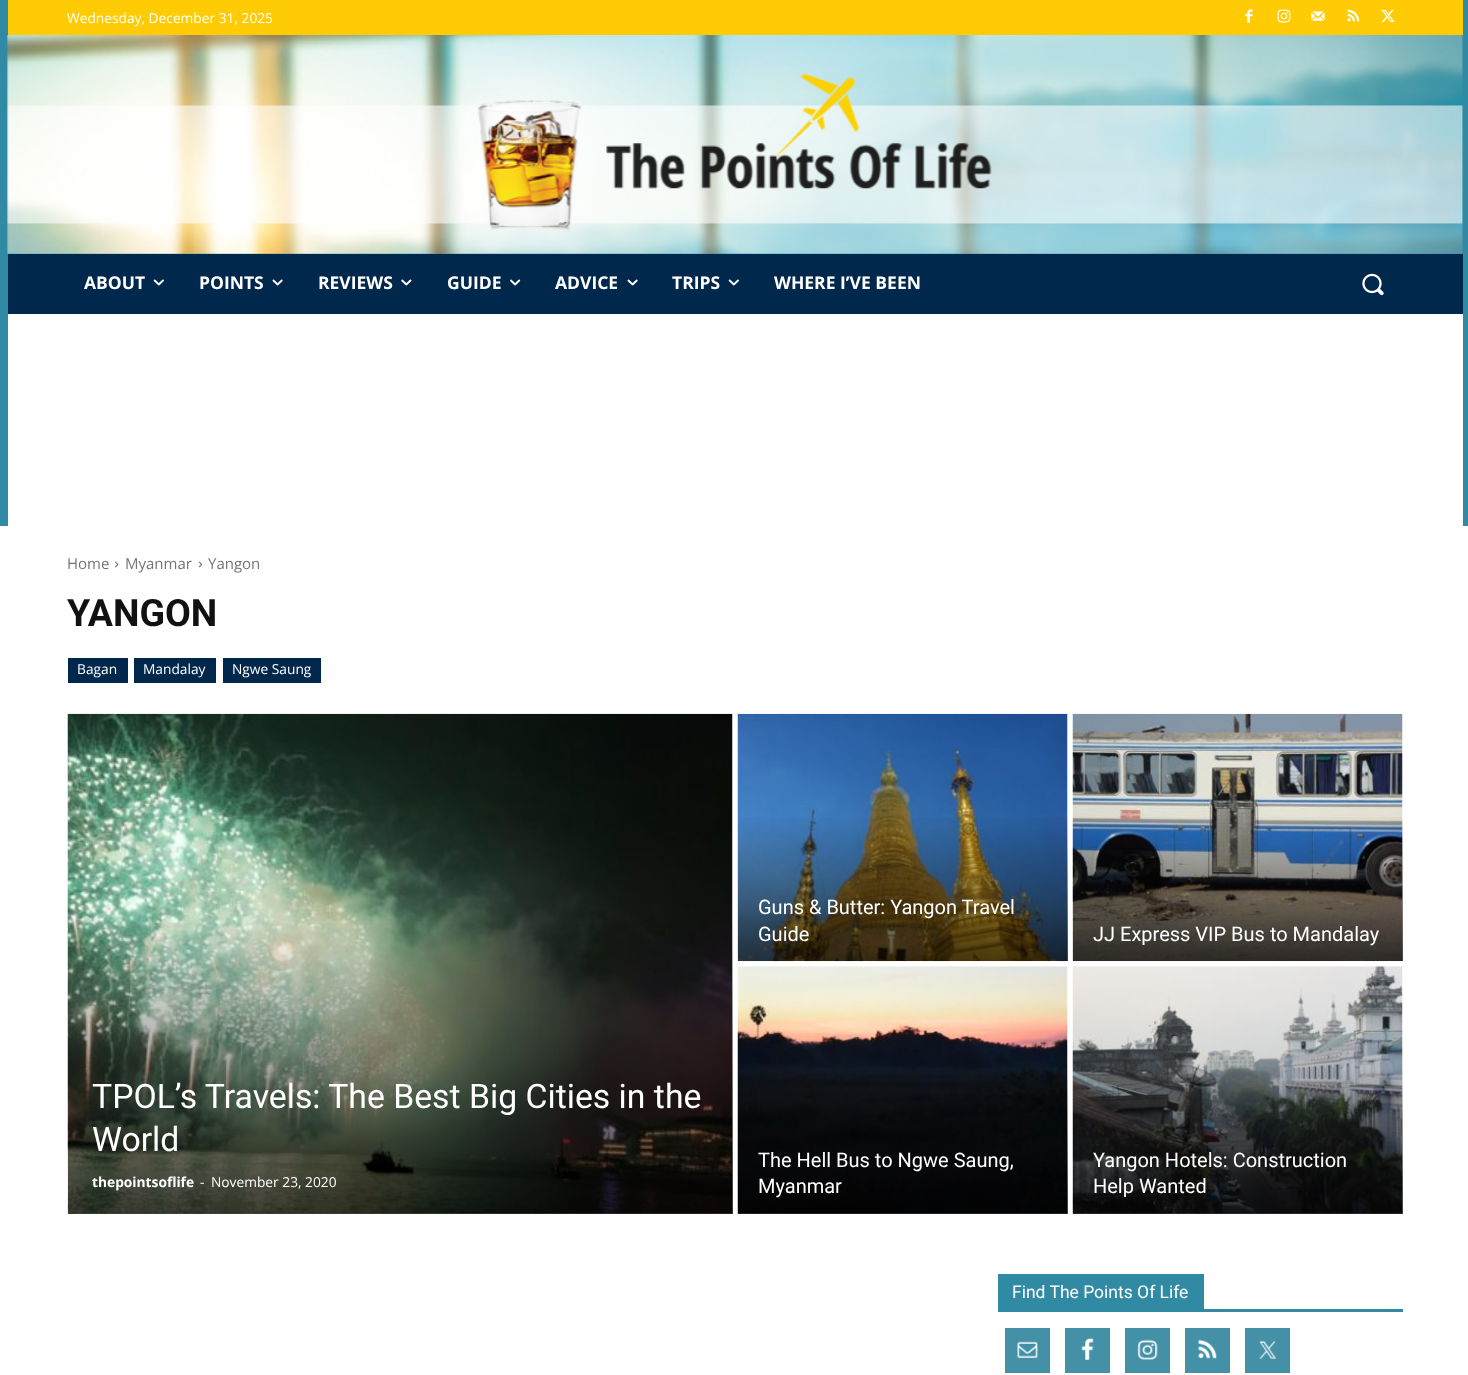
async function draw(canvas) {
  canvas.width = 1468;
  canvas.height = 1375;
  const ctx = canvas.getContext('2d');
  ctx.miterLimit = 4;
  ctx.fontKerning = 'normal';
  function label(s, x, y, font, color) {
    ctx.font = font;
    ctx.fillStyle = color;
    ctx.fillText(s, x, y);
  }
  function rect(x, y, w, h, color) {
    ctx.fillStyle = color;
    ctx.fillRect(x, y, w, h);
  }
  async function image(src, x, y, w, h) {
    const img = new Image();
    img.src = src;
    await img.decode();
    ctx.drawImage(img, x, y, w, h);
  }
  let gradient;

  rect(0, 0, 1468, 1375, '#318aa3');
  rect(8, 0, 1455, 35, '#ffcb05');
  label('Wednesday, December 31, 2025', 67, 23, '13.75px Open Sans', '#fff');
  await image('assets/img1.png', 1245, 9, 8, 14);
  await image('assets/img2.png', 1277, 9, 14, 14);
  await image('assets/img3.png', 1311, 11, 14, 10);
  await image('assets/img4.png', 1347, 9, 13, 13);
  await image('assets/img5.png', 1381, 9, 14, 13);
  await image('assets/img6.png', 7, 35, 1456, 219);
  rect(8, 254, 1455, 60, '#00274c');
  label('ABOUT', 84, 289, 'bold 17.5px Open Sans', '#fff');
  await image('assets/img7.png', 153, 279, 11, 7);
  label('POINTS', 199, 289, 'bold 17.5px Open Sans', '#fff');
  await image('assets/img8.png', 272, 279, 11, 7);
  label('REVIEWS', 318, 289, 'bold 17.5px Open Sans', '#fff');
  await image('assets/img9.png', 401, 279, 11, 7);
  label('GUIDE', 447, 289, 'bold 17.5px Open Sans', '#fff');
  await image('assets/img10.png', 510, 279, 11, 7);
  label('ADVICE', 555, 289, 'bold 17.5px Open Sans', '#fff');
  await image('assets/img8.png', 627, 279, 11, 7);
  label('TRIPS', 672, 289, 'bold 17.5px Open Sans', '#fff');
  await image('assets/img7.png', 728, 279, 11, 7);
  label('WHERE I’VE BEEN', 774, 289, 'bold 17.5px Open Sans', '#fff');
  await image('assets/img11.png', 1362, 273, 22, 23);
  rect(8, 314, 1455, 212, '#fff');
  rect(0, 526, 1468, 849, '#fff');
  label('Home', 67, 569, '15px Open Sans', '#747474');
  await image('assets/img12.png', 115, 561, 4, 7);
  label('Myanmar', 125, 569, '15px Open Sans', '#747474');
  await image('assets/img13.png', 198, 561, 5, 7);
  label('Yangon', 208, 569, '15px Open Sans', '#747474');
  label('YANGON', 67, 626, 'bold 37.5px Roboto', '#111');
  rect(68, 658, 60, 25, '#00274c');
  label('Bagan', 77, 674, '13.75px Open Sans', '#fff');
  rect(134, 658, 82, 25, '#00274c');
  label('Mandalay', 143, 674, '13.75px Open Sans', '#fff');
  rect(223, 658, 98, 25, '#00274c');
  label('Ngwe Saung', 232, 674, '13.75px Open Sans', '#fff');
  await image('assets/img14.png', 67, 713, 666, 501);
  gradient = ctx.createLinearGradient(400, 1214, 400, 714);
  gradient.addColorStop(0, '#000000b3');
  gradient.addColorStop(0.6, '#00000000');
  gradient.addColorStop(1, '#00000000');
  ctx.fillStyle = gradient;
  ctx.fillRect(68, 923, 665, 291);
  label('TPOL’s Travels: The Best Big Cities in the', 92, 1108, '33.75px Roboto', '#fff');
  label('World', 92, 1151, '33.75px Roboto', '#fff');
  label('thepointsoflife', 92, 1187, 'bold 13.75px Open Sans', '#fff');
  label('-', 200, 1187, '13.75px Open Sans', '#fff');
  label('November 23, 2020', 211, 1187, '13.75px Open Sans', '#fff');
  await image('assets/img15.png', 737, 713, 331, 249);
  gradient = ctx.createLinearGradient(903, 961, 903, 714);
  gradient.addColorStop(0, '#000000b3');
  gradient.addColorStop(0.6, '#00000000');
  gradient.addColorStop(1, '#00000000');
  ctx.fillStyle = gradient;
  ctx.fillRect(738, 817, 330, 144);
  label('Guns & Butter: Yangon Travel', 758, 914, '20px Roboto', '#fff');
  label('Guide', 758, 941, '20px Roboto', '#fff');
  await image('assets/img16.png', 1072, 713, 331, 249);
  gradient = ctx.createLinearGradient(1238, 961, 1238, 714);
  gradient.addColorStop(0, '#000000b3');
  gradient.addColorStop(0.6, '#00000000');
  gradient.addColorStop(1, '#00000000');
  ctx.fillStyle = gradient;
  ctx.fillRect(1073, 817, 330, 144);
  label('JJ Express VIP Bus to Mandalay', 1093, 941, '20px Roboto', '#fff');
  await image('assets/img17.png', 737, 966, 331, 248);
  gradient = ctx.createLinearGradient(903, 1214, 903, 966);
  gradient.addColorStop(0, '#000000b3');
  gradient.addColorStop(0.6, '#00000000');
  gradient.addColorStop(1, '#00000000');
  ctx.fillStyle = gradient;
  ctx.fillRect(738, 1070, 330, 144);
  label('The Hell Bus to Ngwe Saung,', 758, 1167, '20px Roboto', '#fff');
  label('Myanmar', 758, 1193, '20px Roboto', '#fff');
  await image('assets/img18.png', 1072, 966, 331, 248);
  gradient = ctx.createLinearGradient(1238, 1214, 1238, 966);
  gradient.addColorStop(0, '#000000b3');
  gradient.addColorStop(0.6, '#00000000');
  gradient.addColorStop(1, '#00000000');
  ctx.fillStyle = gradient;
  ctx.fillRect(1073, 1070, 330, 144);
  label('Yangon Hotels: Construction', 1093, 1167, '20px Roboto', '#fff');
  label('Help Wanted', 1093, 1193, '20px Roboto', '#fff');
  rect(998, 1309, 405, 3, '#318aa3');
  rect(998, 1274, 206, 35, '#318aa3');
  label('Find The Points Of Life', 1012, 1298, '17.5px Roboto', '#fff');
  rect(1005, 1328, 45, 45, '#4490a7');
  await image('assets/img19.png', 1017, 1341, 22, 17);
  rect(1065, 1328, 45, 45, '#4490a7');
  await image('assets/img20.png', 1081, 1338, 13, 22);
  rect(1125, 1328, 45, 45, '#4490a7');
  await image('assets/img21.png', 1137, 1339, 21, 21);
  rect(1185, 1328, 45, 45, '#4490a7');
  await image('assets/img22.png', 1198, 1339, 19, 20);
  rect(1245, 1328, 45, 45, '#4490a7');
  await image('assets/img23.png', 1259, 1340, 18, 19);
}

draw(document.querySelector('canvas'));
